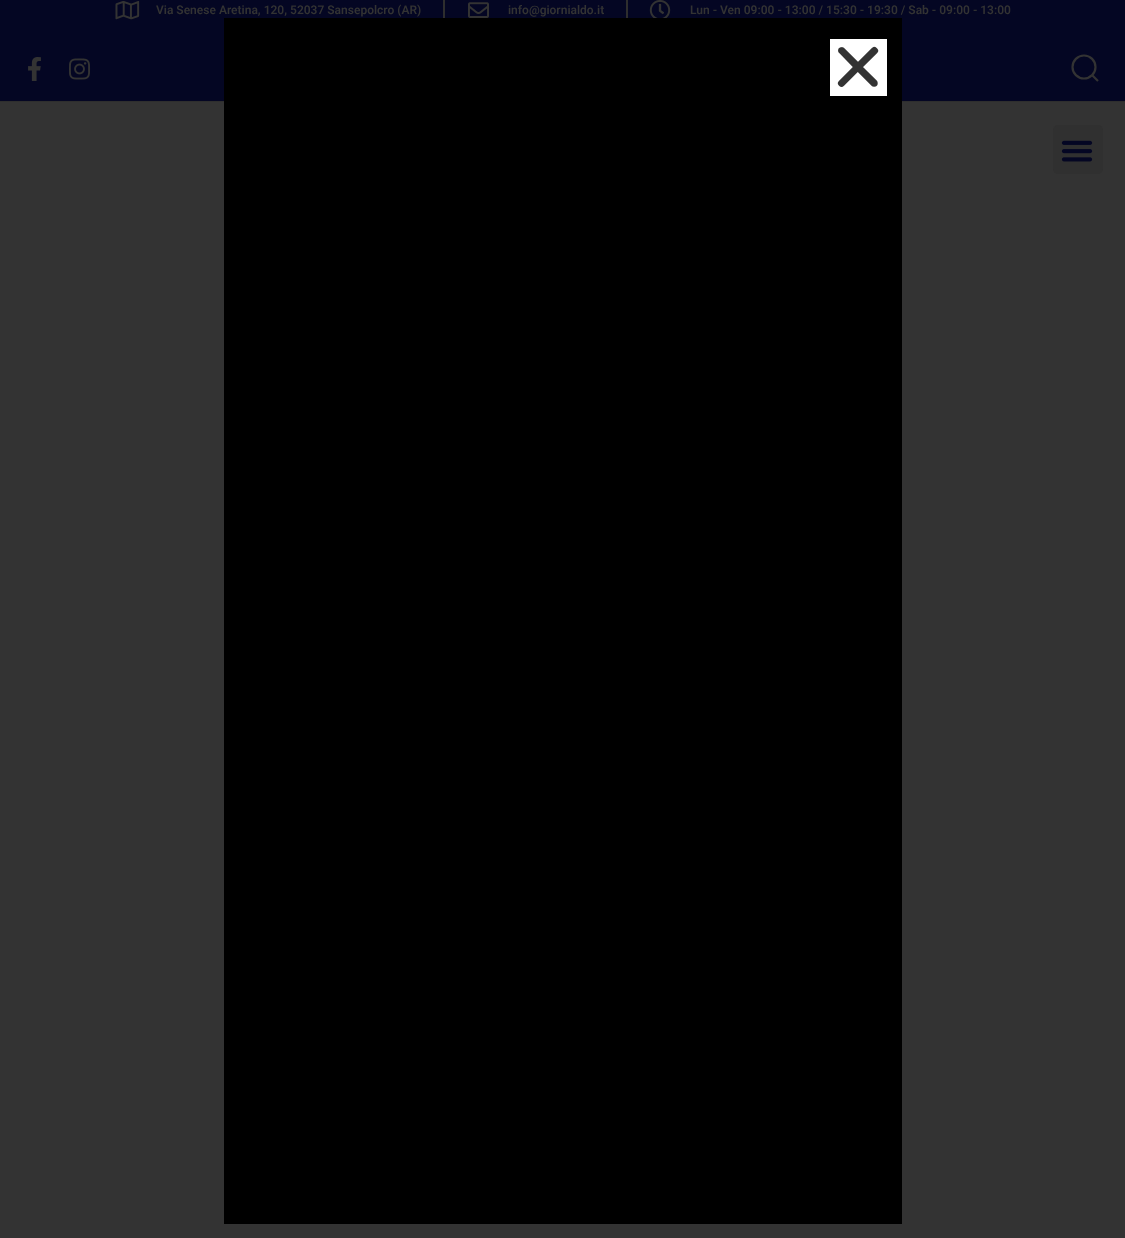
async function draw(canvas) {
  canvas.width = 1125;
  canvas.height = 1238;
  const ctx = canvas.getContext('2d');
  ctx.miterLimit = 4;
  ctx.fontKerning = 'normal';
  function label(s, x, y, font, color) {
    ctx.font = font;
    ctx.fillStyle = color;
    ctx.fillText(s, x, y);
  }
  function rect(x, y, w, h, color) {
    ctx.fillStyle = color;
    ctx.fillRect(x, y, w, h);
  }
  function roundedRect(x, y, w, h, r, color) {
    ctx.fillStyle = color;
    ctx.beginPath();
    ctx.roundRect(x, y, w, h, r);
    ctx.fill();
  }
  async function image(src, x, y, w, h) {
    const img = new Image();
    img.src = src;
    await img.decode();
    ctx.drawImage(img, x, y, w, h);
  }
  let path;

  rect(0, 0, 1125, 1238, '#333');
  rect(0, 0, 1125, 101, '#040623');
  rect(0, 101, 1125, 1, '#2e2e2e');
  await image('assets/img1.png', 115, 0, 25, 20);
  label('Via Senese Aretina, 120, 52037 Sansepolcro (AR)', 156, 14, '600 12px Roboto', '#333');
  rect(443, 0, 2, 21, '#2e2e2e');
  await image('assets/img2.png', 468, 2, 21, 16);
  label('info@giornialdo.it', 508, 14, '600 12px Roboto', '#333');
  rect(626, 0, 2, 21, '#2e2e2e');
  await image('assets/img3.png', 649, 0, 22, 18);
  label('Lun - Ven 09:00 - 13:00 / 15:30 - 19:30 / Sab - 09:00 - 13:00', 690, 14, '600 12px Roboto', '#333');
  await image('assets/img4.png', 28, 57, 13, 24);
  await image('assets/img5.png', 69, 58, 22, 22);
  ctx.beginPath();
  ctx.arc(1084, 67, 11.5, 0, 2 * Math.PI);
  ctx.strokeStyle = '#333';
  ctx.lineWidth = 2.2;
  ctx.stroke();
  path = new Path2D('M1098 81L1092 75');
  ctx.stroke(path);
  roundedRect(1053, 125, 50, 49, 5, '#303030');
  await image('assets/img6.png', 1061, 140, 32, 22);
  rect(224, 18, 678, 1206, '#000');
  rect(830, 39, 57, 57, '#fff');
  await image('assets/img7.png', 837, 46, 42, 41);
}

draw(document.querySelector('canvas'));
